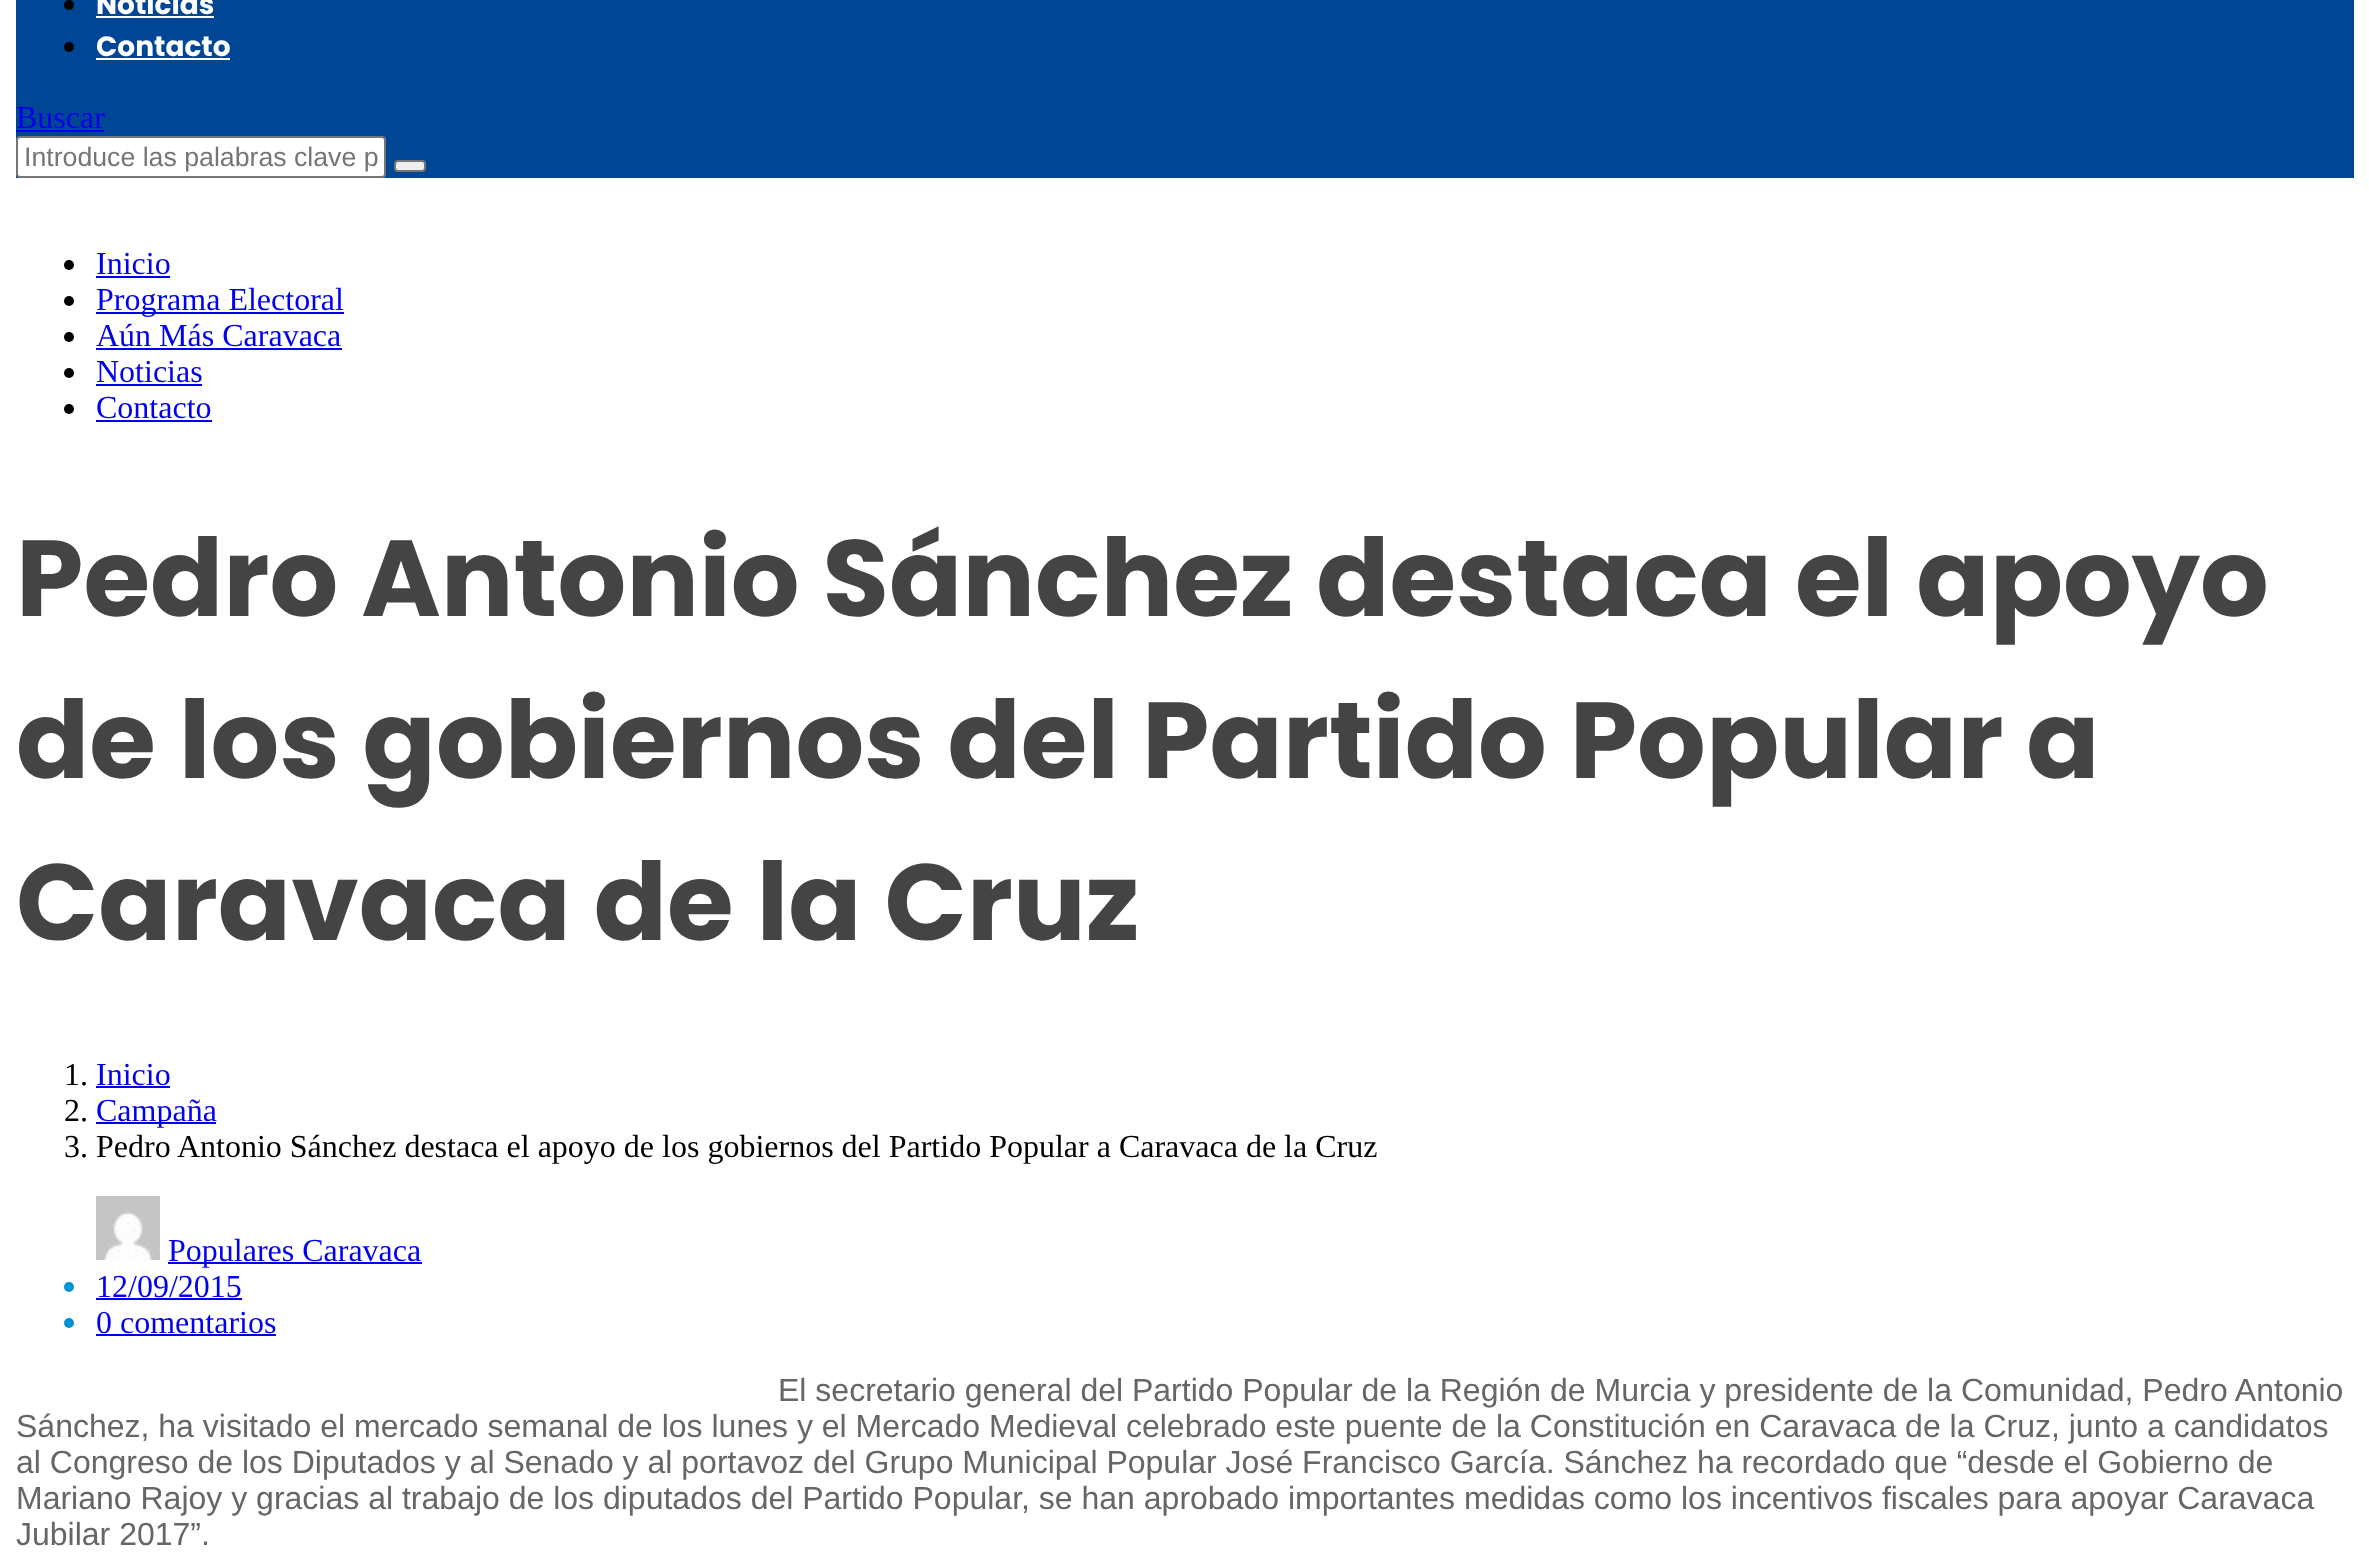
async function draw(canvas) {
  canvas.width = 2369;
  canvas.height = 1568;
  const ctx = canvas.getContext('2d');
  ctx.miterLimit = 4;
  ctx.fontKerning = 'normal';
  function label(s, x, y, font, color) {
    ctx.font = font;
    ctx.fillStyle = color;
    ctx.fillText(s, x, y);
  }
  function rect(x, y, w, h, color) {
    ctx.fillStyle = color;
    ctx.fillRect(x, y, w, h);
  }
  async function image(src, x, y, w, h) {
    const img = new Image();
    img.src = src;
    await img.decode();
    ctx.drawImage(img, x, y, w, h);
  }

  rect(0, 0, 2369, 1568, '#fff');
  rect(16, 0, 2338, 178, '#004694');
  ctx.fillStyle = '#000';
  ctx.beginPath();
  ctx.arc(69, 5, 5, 0, 2 * Math.PI);
  ctx.fill();
  label('Noticias', 96, 14, 'bold 28px Poppins', '#fff');
  rect(96, 16, 118, 2, '#fff');
  ctx.fillStyle = '#000';
  ctx.beginPath();
  ctx.arc(69, 47, 5, 0, 2 * Math.PI);
  ctx.fill();
  label('Contacto', 96, 56, 'bold 28px Poppins', '#fff');
  rect(96, 58, 134, 2, '#fff');
  label('Buscar', 16, 128, '32px Liberation Serif', '#00e');
  rect(16, 130, 88, 2, '#00e');
  ctx.fillStyle = '#fff';
  ctx.beginPath();
  ctx.roundRect(17, 137, 368, 40, 3);
  ctx.fill();
  ctx.strokeStyle = '#767676';
  ctx.lineWidth = 2;
  ctx.stroke();
  label('Introduce las palabras clave p', 24, 166, '26.7px Liberation Sans', '#757575');
  ctx.fillStyle = '#efefef';
  ctx.beginPath();
  ctx.roundRect(395, 161, 30, 10, 3);
  ctx.fill();
  ctx.stroke();
  ctx.fillStyle = '#000';
  ctx.beginPath();
  ctx.arc(69, 265, 5, 0, 2 * Math.PI);
  ctx.fill();
  label('Inicio', 96, 274, '32px Liberation Serif', '#00e');
  rect(96, 276, 74, 2, '#00e');
  ctx.fillStyle = '#000';
  ctx.beginPath();
  ctx.arc(69, 301, 5, 0, 2 * Math.PI);
  ctx.fill();
  rect(96, 312, 248, 2, '#00e');
  label('Programa Electoral', 96, 310, '32px Liberation Serif', '#00e');
  ctx.fillStyle = '#000';
  ctx.beginPath();
  ctx.arc(69, 337, 5, 0, 2 * Math.PI);
  ctx.fill();
  label('Aún Más Caravaca', 96, 346, '32px Liberation Serif', '#00e');
  rect(96, 348, 246, 2, '#00e');
  ctx.fillStyle = '#000';
  ctx.beginPath();
  ctx.arc(69, 373, 5, 0, 2 * Math.PI);
  ctx.fill();
  label('Noticias', 96, 382, '32px Liberation Serif', '#00e');
  rect(96, 384, 106, 2, '#00e');
  ctx.fillStyle = '#000';
  ctx.beginPath();
  ctx.arc(69, 409, 5, 0, 2 * Math.PI);
  ctx.fill();
  label('Contacto', 96, 418, '32px Liberation Serif', '#00e');
  rect(96, 420, 116, 2, '#00e');
  label('Pedro Antonio Sánchez destaca el apoyo', 16, 616, 'bold 108px Poppins', '#444');
  label('de los gobiernos del Partido Popular a', 16, 778, 'bold 108px Poppins', '#444');
  label('Caravaca de la Cruz', 16, 940, 'bold 108px Poppins', '#444');
  label('1.', 64, 1085, '32px Liberation Serif', '#000');
  label('Inicio', 96, 1085, '32px Liberation Serif', '#00e');
  rect(96, 1086, 74, 2, '#00e');
  label('2.', 64, 1121, '32px Liberation Serif', '#000');
  rect(96, 1122, 120, 2, '#00e');
  label('Campaña', 96, 1121, '32px Liberation Serif', '#00e');
  label('3. Pedro Antonio Sánchez destaca el apoyo de los gobiernos del Partido Popular a Caravaca de la Cruz', 64, 1157, '32px Liberation Serif', '#000');
  await image('assets/img1.png', 96, 1196, 64, 64);
  rect(168, 1262, 254, 2, '#00e');
  label('Populares Caravaca', 168, 1261, '32px Liberation Serif', '#00e');
  ctx.fillStyle = '#0092d3';
  ctx.beginPath();
  ctx.arc(69, 1287, 5, 0, 2 * Math.PI);
  ctx.fill();
  label('12/09/2015', 96, 1297, '32px Liberation Serif', '#00e');
  rect(96, 1298, 146, 2, '#00e');
  ctx.fillStyle = '#0092d3';
  ctx.beginPath();
  ctx.arc(69, 1323, 5, 0, 2 * Math.PI);
  ctx.fill();
  label('0 comentarios', 96, 1333, '32px Liberation Serif', '#00e');
  rect(96, 1334, 180, 2, '#00e');
  label('El secretario general del Partido Popular de la Región de Murcia y presidente de la Comunidad, Pedro Antonio', 778, 1401, '32px Arimo', '#666');
  label('Sánchez, ha visitado el mercado semanal de los lunes y el Mercado Medieval celebrado este puente de la Constitución en Caravaca de la Cruz, junto a candidatos', 16, 1437, '32px Arimo', '#666');
  label('al Congreso de los Diputados y al Senado y al portavoz del Grupo Municipal Popular José Francisco García. Sánchez ha recordado que “desde el Gobierno de', 16, 1473, '32px Arimo', '#666');
  label('Mariano Rajoy y gracias al trabajo de los diputados del Partido Popular, se han aprobado importantes medidas como los incentivos fiscales para apoyar Caravaca', 16, 1509, '32px Arimo', '#666');
  label('Jubilar 2017”.', 16, 1545, '32px Arimo', '#666');
}

draw(document.querySelector('canvas'));
